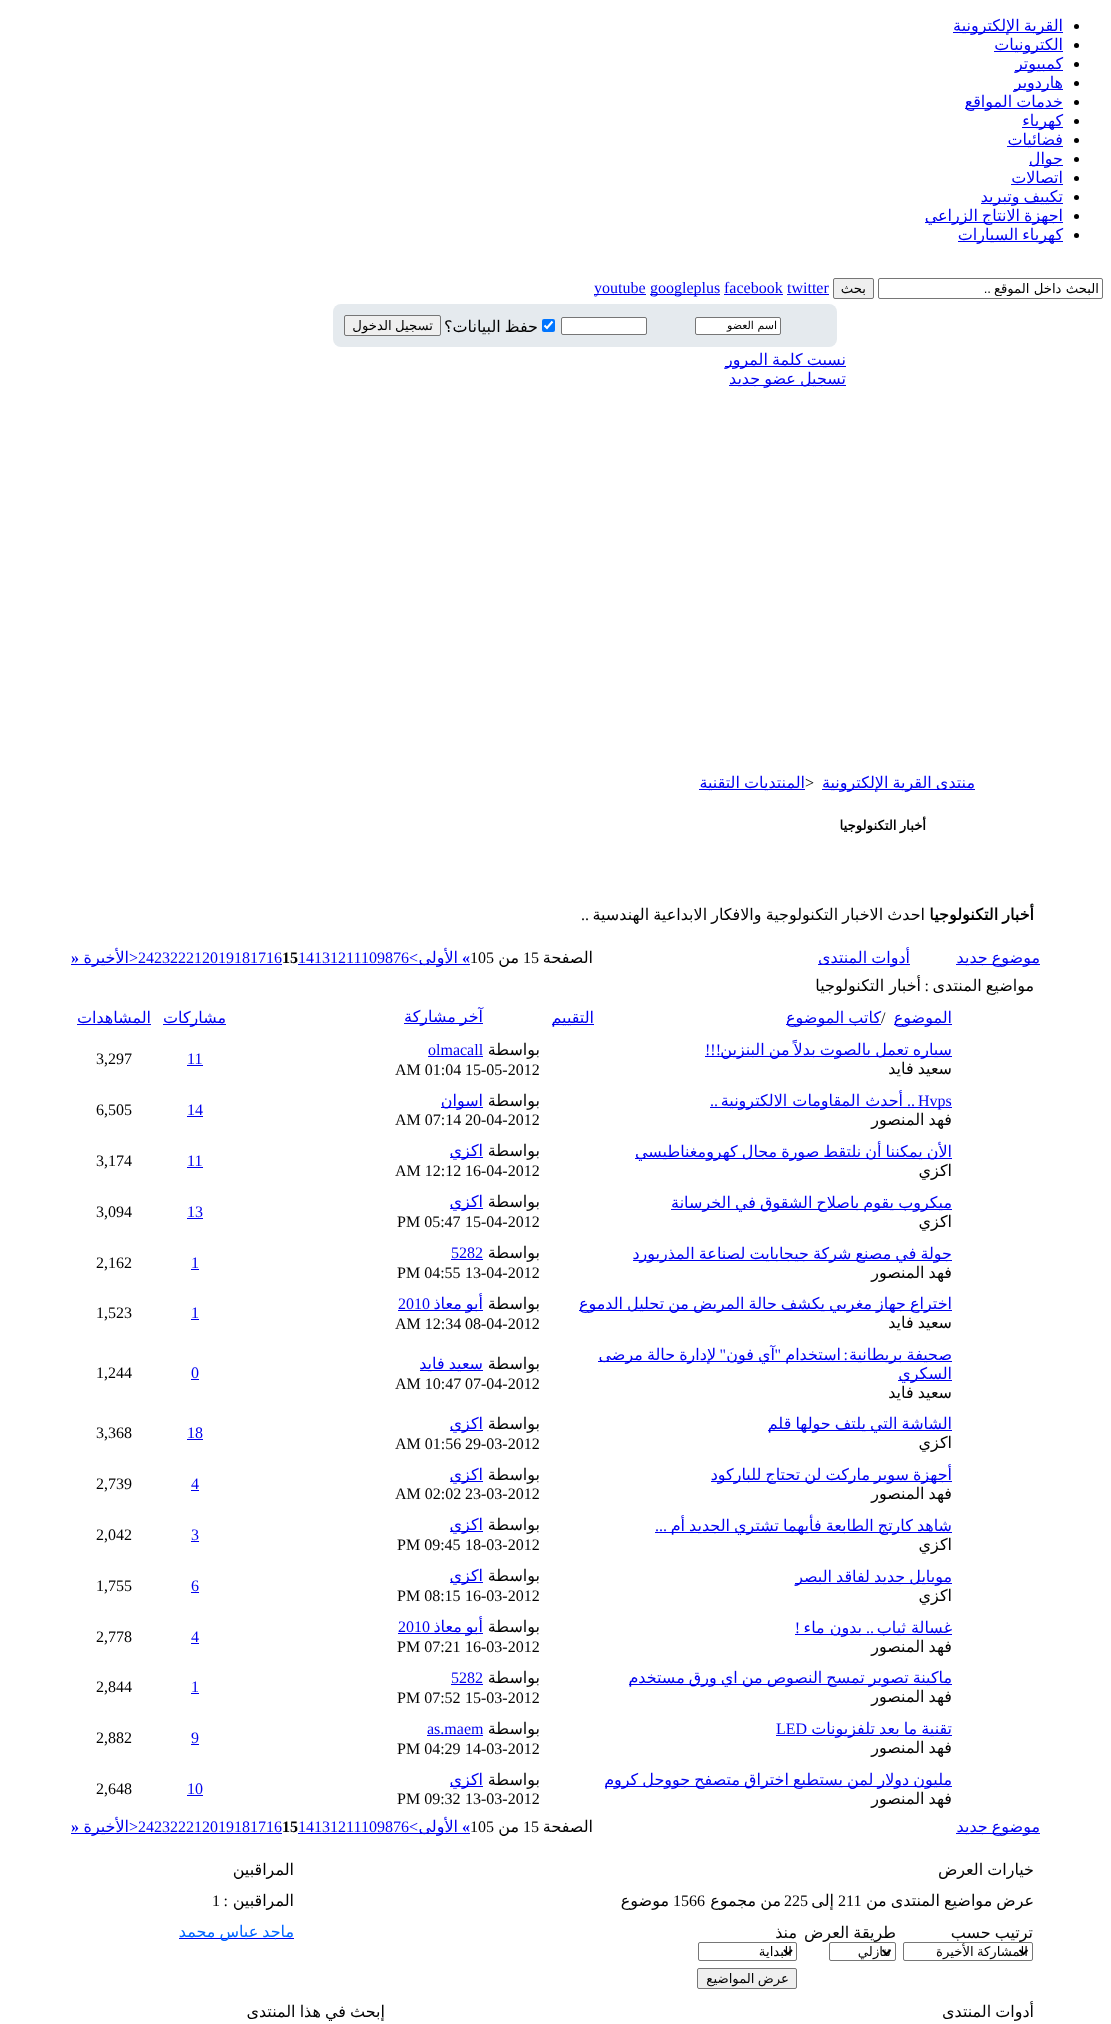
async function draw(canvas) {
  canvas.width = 1111;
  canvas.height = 2024;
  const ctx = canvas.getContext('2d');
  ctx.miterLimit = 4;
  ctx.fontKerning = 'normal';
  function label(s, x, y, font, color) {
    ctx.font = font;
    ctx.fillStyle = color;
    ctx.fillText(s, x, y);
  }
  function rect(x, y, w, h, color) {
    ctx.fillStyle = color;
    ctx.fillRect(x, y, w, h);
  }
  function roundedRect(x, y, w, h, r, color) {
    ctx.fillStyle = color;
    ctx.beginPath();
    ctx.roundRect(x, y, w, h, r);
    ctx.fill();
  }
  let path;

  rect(0, 0, 1111, 2024, '#fff');
  ctx.fillStyle = '#000';
  ctx.beginPath();
  ctx.arc(1076.5, 26.5, 2.5, 0, 2 * Math.PI);
  ctx.fill();
  rect(953, 32, 110, 1, '#00e');
  ctx.wordSpacing = '-1px';
  ctx.direction = 'rtl';
  label('القرية الإلكترونية', 1063, 31, '16px DejaVu Sans', '#00e');
  ctx.fillStyle = '#000';
  ctx.beginPath();
  ctx.arc(1076.5, 45.5, 2.5, 0, 2 * Math.PI);
  ctx.fill();
  rect(994, 51, 69, 1, '#00e');
  ctx.wordSpacing = '0px';
  label('الكترونيات', 1063, 50, '16px DejaVu Sans', '#00e');
  ctx.fillStyle = '#000';
  ctx.beginPath();
  ctx.arc(1076.5, 64.5, 2.5, 0, 2 * Math.PI);
  ctx.fill();
  rect(1015, 70, 48, 1, '#00e');
  label('كمبيوتر', 1063, 69, '16px DejaVu Sans', '#00e');
  ctx.fillStyle = '#000';
  ctx.beginPath();
  ctx.arc(1076.5, 83.5, 2.5, 0, 2 * Math.PI);
  ctx.fill();
  rect(1014, 89, 49, 1, '#00e');
  label('هاردوير', 1063, 88, '16px DejaVu Sans', '#00e');
  ctx.fillStyle = '#000';
  ctx.beginPath();
  ctx.arc(1076.5, 102.5, 2.5, 0, 2 * Math.PI);
  ctx.fill();
  rect(965, 108, 98, 1, '#00e');
  ctx.wordSpacing = '-1px';
  label('خدمات المواقع', 1063, 107, '16px DejaVu Sans', '#00e');
  ctx.fillStyle = '#000';
  ctx.beginPath();
  ctx.arc(1076.5, 121.5, 2.5, 0, 2 * Math.PI);
  ctx.fill();
  rect(1022, 127, 41, 1, '#00e');
  ctx.wordSpacing = '0px';
  label('كهرباء', 1063, 126, '16px DejaVu Sans', '#00e');
  ctx.fillStyle = '#000';
  ctx.beginPath();
  ctx.arc(1076.5, 140.5, 2.5, 0, 2 * Math.PI);
  ctx.fill();
  rect(1007, 146, 56, 1, '#00e');
  label('فضائيات', 1063, 145, '16px DejaVu Sans', '#00e');
  ctx.fillStyle = '#000';
  ctx.beginPath();
  ctx.arc(1076.5, 159.5, 2.5, 0, 2 * Math.PI);
  ctx.fill();
  rect(1029, 165, 34, 1, '#00e');
  label('جوال', 1063, 164, '16px DejaVu Sans', '#00e');
  ctx.fillStyle = '#000';
  ctx.beginPath();
  ctx.arc(1076.5, 178.5, 2.5, 0, 2 * Math.PI);
  ctx.fill();
  label('اتصالات', 1063, 183, '16px DejaVu Sans', '#00e');
  rect(1011, 184, 52, 1, '#00e');
  ctx.fillStyle = '#000';
  ctx.beginPath();
  ctx.arc(1076.5, 197.5, 2.5, 0, 2 * Math.PI);
  ctx.fill();
  rect(981, 203, 82, 1, '#00e');
  ctx.wordSpacing = '-1px';
  label('تكييف وتبريد', 1063, 202, '16px DejaVu Sans', '#00e');
  ctx.fillStyle = '#000';
  ctx.beginPath();
  ctx.arc(1076.5, 216.5, 2.5, 0, 2 * Math.PI);
  ctx.fill();
  rect(925, 222, 138, 1, '#00e');
  label('اجهزة الانتاج الزراعي', 1063, 221, '16px DejaVu Sans', '#00e');
  ctx.fillStyle = '#000';
  ctx.beginPath();
  ctx.arc(1076.5, 235.5, 2.5, 0, 2 * Math.PI);
  ctx.fill();
  rect(958, 241, 105, 1, '#00e');
  label('كهرباء السيارات', 1063, 240, '16px DejaVu Sans', '#00e');
  ctx.beginPath();
  ctx.roundRect(878.5, 278.5, 224, 20, 1.5);
  ctx.strokeStyle = '#767676';
  ctx.stroke();
  ctx.save();
  ctx.beginPath();
  ctx.rect(882, 281, 217, 15);
  ctx.clip();
  ctx.wordSpacing = '0px';
  label('البحث داخل الموقع', 1099, 293, '13.25px DejaVu Sans', '#000');
  ctx.restore();
  ctx.wordSpacing = '0px';
  label('..', 991, 293, '13.25px Liberation Sans', '#000');
  ctx.fillStyle = '#efefef';
  ctx.beginPath();
  ctx.roundRect(833.5, 278.5, 40, 20, 1.5);
  ctx.fill();
  ctx.stroke();
  label('بحث', 866, 293, '13.25px DejaVu Sans', '#000');
  ctx.direction = 'ltr';
  label('twitter', 787, 293, '16px Liberation Serif', '#00e');
  rect(787, 294, 42, 1, '#00e');
  label('facebook', 724, 293, '16px Liberation Serif', '#00e');
  rect(724, 294, 59, 1, '#00e');
  rect(650, 294, 70, 1, '#00e');
  label('googleplus', 650, 293, '16px Liberation Serif', '#00e');
  rect(594, 294, 52, 1, '#00e');
  label('youtube', 594, 293, '16px Liberation Serif', '#00e');
  roundedRect(333, 304, 504, 43, 8, '#e5eaee');
  ctx.fillStyle = '#fff';
  ctx.beginPath();
  ctx.roundRect(695.5, 317.5, 85, 17, 1.5);
  ctx.fill();
  ctx.stroke();
  ctx.direction = 'rtl';
  label('اسم العضو', 777, 329, '11px DejaVu Sans', '#000');
  ctx.fillStyle = '#fff';
  ctx.beginPath();
  ctx.roundRect(561.5, 317.5, 85, 17, 1.5);
  ctx.fill();
  ctx.stroke();
  roundedRect(542, 319, 13, 13, 2, '#0075ff');
  path = new Path2D('M544.5 325.5L547 328L552.5 321.5');
  ctx.strokeStyle = '#fff';
  ctx.lineWidth = 2.1;
  ctx.stroke(path);
  ctx.wordSpacing = '-1px';
  label('حفظ البيانات؟', 538, 332, '16px DejaVu Sans', '#000');
  ctx.fillStyle = '#efefef';
  ctx.beginPath();
  ctx.roundRect(344.5, 315.5, 96, 20, 1.5);
  ctx.fill();
  ctx.strokeStyle = '#767676';
  ctx.lineWidth = 1;
  ctx.stroke();
  label('تسجيل الدخول', 433, 330, '13.25px DejaVu Sans', '#000');
  rect(725, 366, 121, 1, '#00e');
  label('نسيت كلمة المرور', 846, 365, '16px DejaVu Sans', '#00e');
  rect(729, 385, 117, 1, '#00e');
  label('تسجيل عضو جديد', 846, 384, '16px DejaVu Sans', '#00e');
  rect(822, 789, 153, 1, '#00e');
  label('منتدى القرية الإلكترونية', 975, 788, '16px DejaVu Sans', '#00e');
  ctx.wordSpacing = '0px';
  ctx.direction = 'ltr';
  label('>', 805, 788, '16px Liberation Serif', '#000');
  rect(699, 789, 106, 1, '#00e');
  ctx.wordSpacing = '-1px';
  ctx.direction = 'rtl';
  label('المنتديات التقنية', 805, 788, '16px DejaVu Sans', '#00e');
  label('أخبار التكنولوجيا', 926, 830, 'bold 13.25px DejaVu Sans', '#000');
  label('أخبار التكنولوجيا', 1034, 920, 'bold 16px DejaVu Sans', '#000');
  label('احدث الاخبار التكنولوجية والافكار الابداعية الهندسية', 925, 920, '16px DejaVu Sans', '#000');
  ctx.wordSpacing = '0px';
  label('..', 589, 920, '16px Liberation Serif', '#000');
  rect(956, 964, 84, 1, '#00e');
  ctx.wordSpacing = '-1px';
  label('موضوع جديد', 1040, 963, '16px DejaVu Sans', '#00e');
  rect(818, 964, 92, 1, '#00e');
  label('أدوات المنتدى', 910, 963, '16px DejaVu Sans', '#00e');
  ctx.wordSpacing = '0px';
  label('الصفحة', 593, 963, '16px DejaVu Sans', '#000');
  ctx.direction = 'ltr';
  label('15', 523, 963, '16px Liberation Serif', '#000');
  ctx.direction = 'rtl';
  label('من', 519, 963, '16px DejaVu Sans', '#000');
  ctx.direction = 'ltr';
  label('105', 470, 963, '16px Liberation Serif', '#000');
  label('«', 462, 963, 'bold 16px Liberation Serif', '#00e');
  rect(298, 964, 172, 1, '#00e');
  ctx.direction = 'rtl';
  label('الأولى', 458, 963, '16px DejaVu Sans', '#00e');
  ctx.direction = 'ltr';
  label('<', 409, 963, '16px Liberation Serif', '#00e');
  label('6', 401, 963, '16px Liberation Serif', '#00e');
  label('7', 393, 963, '16px Liberation Serif', '#00e');
  label('8', 385, 963, '16px Liberation Serif', '#00e');
  label('9', 377, 963, '16px Liberation Serif', '#00e');
  label('10', 361, 963, '16px Liberation Serif', '#00e');
  label('11', 346, 963, '16px Liberation Serif', '#00e');
  label('12', 330, 963, '16px Liberation Serif', '#00e');
  label('13', 314, 963, '16px Liberation Serif', '#00e');
  label('14', 298, 963, '16px Liberation Serif', '#00e');
  label('15', 282, 963, 'bold 16px Liberation Serif', '#000');
  label('16', 266, 963, '16px Liberation Serif', '#00e');
  rect(71, 964, 211, 1, '#00e');
  label('17', 250, 963, '16px Liberation Serif', '#00e');
  label('18', 234, 963, '16px Liberation Serif', '#00e');
  label('19', 218, 963, '16px Liberation Serif', '#00e');
  label('20', 202, 963, '16px Liberation Serif', '#00e');
  label('21', 186, 963, '16px Liberation Serif', '#00e');
  label('22', 170, 963, '16px Liberation Serif', '#00e');
  label('23', 154, 963, '16px Liberation Serif', '#00e');
  label('24', 138, 963, '16px Liberation Serif', '#00e');
  label('>', 129, 963, '16px Liberation Serif', '#00e');
  ctx.direction = 'rtl';
  label('الأخيرة', 129, 963, '16px DejaVu Sans', '#00e');
  ctx.direction = 'ltr';
  label('»', 71, 963, 'bold 16px Liberation Serif', '#00e');
  ctx.wordSpacing = '-1px';
  ctx.direction = 'rtl';
  label('مواضيع المنتدى', 1034, 991, '16px DejaVu Sans', '#000');
  ctx.wordSpacing = '0px';
  label(':', 929, 991, '16px Liberation Serif', '#000');
  label('أخبار التكنولوجيا', 921, 991, '16px DejaVu Sans', '#000');
  rect(894, 1024, 58, 1, '#00e');
  label('الموضوع', 952, 1023, '16px DejaVu Sans', '#00e');
  ctx.direction = 'ltr';
  label('/', 881, 1023, '16px Liberation Serif', '#000');
  rect(786, 1024, 95, 1, '#00e');
  ctx.wordSpacing = '-1px';
  ctx.direction = 'rtl';
  label('كاتب الموضوع', 881, 1023, '16px DejaVu Sans', '#00e');
  rect(552, 1024, 42, 1, '#00e');
  ctx.wordSpacing = '0px';
  label('التقييم', 594, 1023, '16px DejaVu Sans', '#00e');
  rect(404, 1023, 79, 1, '#00e');
  ctx.wordSpacing = '-1px';
  label('آخر مشاركة', 483, 1022, '16px DejaVu Sans', '#00e');
  rect(163, 1024, 63, 1, '#00e');
  ctx.wordSpacing = '0px';
  label('مشاركات', 226, 1023, '16px DejaVu Sans', '#00e');
  label('المشاهدات', 151, 1023, '16px DejaVu Sans', '#00e');
  rect(77, 1024, 74, 1, '#00e');
  rect(705, 1056, 247, 1, '#00e');
  ctx.wordSpacing = '-1px';
  label('سياره تعمل بالصوت بدلاً من البنزين', 952, 1055, '16px DejaVu Sans', '#00e');
  ctx.wordSpacing = '0px';
  label('!!!', 721, 1055, '16px Liberation Serif', '#00e');
  ctx.wordSpacing = '-1px';
  label('سعيد فايد', 952, 1074, '16px DejaVu Sans', '#000');
  ctx.wordSpacing = '0px';
  label('بواسطة', 540, 1055, '16px DejaVu Sans', '#000');
  ctx.direction = 'ltr';
  label('olmacall', 428, 1055, '16px Liberation Serif', '#00e');
  rect(428, 1056, 55, 1, '#00e');
  label('15-05-2012', 465, 1075, '16px Liberation Serif', '#000');
  label('AM 01:04', 395, 1075, '16px Liberation Serif', '#000');
  label('11', 187, 1064, '16px Liberation Serif', '#00e');
  rect(187, 1065, 16, 1, '#00e');
  label('3,297', 96, 1064, '16px Liberation Serif', '#000');
  rect(710, 1107, 242, 1, '#00e');
  label('Hvps', 918, 1106, '16px Liberation Serif', '#00e');
  ctx.direction = 'rtl';
  label('..', 915, 1106, '16px Liberation Serif', '#00e');
  label('أحدث المقاومات الالكترونية', 903, 1106, '16px DejaVu Sans', '#00e');
  label('..', 718, 1106, '16px Liberation Serif', '#00e');
  ctx.wordSpacing = '-1px';
  label('فهد المنصور', 952, 1125, '16px DejaVu Sans', '#000');
  ctx.wordSpacing = '0px';
  label('بواسطة', 540, 1106, '16px DejaVu Sans', '#000');
  rect(441, 1107, 42, 1, '#00e');
  label('اسوان', 483, 1106, '16px DejaVu Sans', '#00e');
  ctx.direction = 'ltr';
  label('20-04-2012', 465, 1125, '16px Liberation Serif', '#000');
  label('AM 07:14', 395, 1125, '16px Liberation Serif', '#000');
  label('14', 187, 1115, '16px Liberation Serif', '#00e');
  rect(187, 1116, 16, 1, '#00e');
  label('6,505', 96, 1115, '16px Liberation Serif', '#000');
  rect(635, 1158, 317, 1, '#00e');
  ctx.wordSpacing = '-1px';
  ctx.direction = 'rtl';
  label('الأن يمكننا أن نلتقط صورة مجال كهرومغناطيسي', 952, 1157, '16px DejaVu Sans', '#00e');
  ctx.wordSpacing = '0px';
  label('اكزي', 952, 1176, '16px DejaVu Sans', '#000');
  label('بواسطة', 540, 1156, '16px DejaVu Sans', '#000');
  rect(450, 1157, 33, 1, '#00e');
  label('اكزي', 483, 1156, '16px DejaVu Sans', '#00e');
  ctx.direction = 'ltr';
  label('16-04-2012', 465, 1176, '16px Liberation Serif', '#000');
  label('AM 12:12', 395, 1176, '16px Liberation Serif', '#000');
  label('11', 187, 1166, '16px Liberation Serif', '#00e');
  rect(187, 1167, 16, 1, '#00e');
  label('3,174', 96, 1166, '16px Liberation Serif', '#000');
  rect(671, 1209, 281, 1, '#00e');
  ctx.wordSpacing = '-1px';
  ctx.direction = 'rtl';
  label('ميكروب يقوم باصلاح الشقوق في الخرسانة', 952, 1208, '16px DejaVu Sans', '#00e');
  ctx.wordSpacing = '0px';
  label('اكزي', 952, 1227, '16px DejaVu Sans', '#000');
  label('بواسطة', 540, 1207, '16px DejaVu Sans', '#000');
  rect(450, 1208, 33, 1, '#00e');
  label('اكزي', 483, 1207, '16px DejaVu Sans', '#00e');
  ctx.direction = 'ltr';
  label('15-04-2012', 465, 1227, '16px Liberation Serif', '#000');
  label('PM 05:47', 397, 1227, '16px Liberation Serif', '#000');
  label('13', 187, 1217, '16px Liberation Serif', '#00e');
  rect(187, 1218, 16, 1, '#00e');
  label('3,094', 96, 1217, '16px Liberation Serif', '#000');
  rect(633, 1260, 319, 1, '#00e');
  ctx.wordSpacing = '-1px';
  ctx.direction = 'rtl';
  label('جولة في مصنع شركة جيجابايت لصناعة المذربورد', 952, 1259, '16px DejaVu Sans', '#00e');
  label('فهد المنصور', 952, 1278, '16px DejaVu Sans', '#000');
  ctx.wordSpacing = '0px';
  label('بواسطة', 540, 1258, '16px DejaVu Sans', '#000');
  ctx.direction = 'ltr';
  label('5282', 451, 1258, '16px Liberation Serif', '#00e');
  rect(451, 1259, 32, 1, '#00e');
  label('13-04-2012', 465, 1278, '16px Liberation Serif', '#000');
  label('PM 04:55', 397, 1278, '16px Liberation Serif', '#000');
  label('1', 191, 1268, '16px Liberation Serif', '#00e');
  rect(191, 1269, 8, 1, '#00e');
  label('2,162', 96, 1268, '16px Liberation Serif', '#000');
  rect(579, 1310, 373, 1, '#00e');
  ctx.wordSpacing = '-1px';
  ctx.direction = 'rtl';
  label('اختراع جهاز مغربي يكشف حالة المريض من تحليل الدموع', 952, 1309, '16px DejaVu Sans', '#00e');
  label('سعيد فايد', 952, 1328, '16px DejaVu Sans', '#000');
  ctx.wordSpacing = '0px';
  label('بواسطة', 540, 1309, '16px DejaVu Sans', '#000');
  rect(398, 1310, 85, 1, '#00e');
  ctx.wordSpacing = '-1px';
  label('أبو معاذ', 483, 1309, '16px DejaVu Sans', '#00e');
  ctx.wordSpacing = '0px';
  ctx.direction = 'ltr';
  label('2010', 398, 1309, '16px Liberation Serif', '#00e');
  label('08-04-2012', 465, 1329, '16px Liberation Serif', '#000');
  label('AM 12:34', 395, 1329, '16px Liberation Serif', '#000');
  label('1', 191, 1318, '16px Liberation Serif', '#00e');
  rect(191, 1319, 8, 1, '#00e');
  label('1,523', 96, 1318, '16px Liberation Serif', '#000');
  rect(598, 1361, 354, 1, '#00e');
  ctx.wordSpacing = '-1px';
  ctx.direction = 'rtl';
  label('صحيفة بريطانية', 952, 1360, '16px DejaVu Sans', '#00e');
  ctx.wordSpacing = '0px';
  label('استخدام', 841, 1360, '16px DejaVu Sans', '#00e');
  ctx.wordSpacing = '-1px';
  label('آي فون', 775, 1360, '16px DejaVu Sans', '#00e');
  ctx.wordSpacing = '0px';
  label('"', 781, 1360, '16px Liberation Serif', '#00e');
  label('"', 726, 1360, '16px Liberation Serif', '#00e');
  ctx.wordSpacing = '-1px';
  label('لإدارة حالة مرضى', 716, 1360, '16px DejaVu Sans', '#00e');
  ctx.wordSpacing = '0px';
  label(':', 848, 1360, '16px Liberation Serif', '#00e');
  rect(898, 1380, 54, 1, '#00e');
  label('السكري', 952, 1379, '16px DejaVu Sans', '#00e');
  ctx.wordSpacing = '-1px';
  label('سعيد فايد', 952, 1398, '16px DejaVu Sans', '#000');
  ctx.wordSpacing = '0px';
  label('بواسطة', 540, 1369, '16px DejaVu Sans', '#000');
  rect(420, 1370, 63, 1, '#00e');
  ctx.wordSpacing = '-1px';
  label('سعيد فايد', 483, 1369, '16px DejaVu Sans', '#00e');
  ctx.wordSpacing = '0px';
  ctx.direction = 'ltr';
  label('07-04-2012', 465, 1389, '16px Liberation Serif', '#000');
  label('AM 10:47', 395, 1389, '16px Liberation Serif', '#000');
  label('0', 191, 1378, '16px Liberation Serif', '#00e');
  rect(191, 1379, 8, 1, '#00e');
  label('1,244', 96, 1378, '16px Liberation Serif', '#000');
  rect(768, 1430, 184, 1, '#00e');
  ctx.wordSpacing = '-1px';
  ctx.direction = 'rtl';
  label('الشاشة التي يلتف حولها قلم', 952, 1429, '16px DejaVu Sans', '#00e');
  ctx.wordSpacing = '0px';
  label('اكزي', 952, 1448, '16px DejaVu Sans', '#000');
  label('بواسطة', 540, 1429, '16px DejaVu Sans', '#000');
  rect(450, 1430, 33, 1, '#00e');
  label('اكزي', 483, 1429, '16px DejaVu Sans', '#00e');
  ctx.direction = 'ltr';
  label('29-03-2012', 465, 1449, '16px Liberation Serif', '#000');
  label('AM 01:56', 395, 1449, '16px Liberation Serif', '#000');
  label('18', 187, 1438, '16px Liberation Serif', '#00e');
  rect(187, 1439, 16, 1, '#00e');
  label('3,368', 96, 1438, '16px Liberation Serif', '#000');
  rect(711, 1481, 241, 1, '#00e');
  ctx.wordSpacing = '-1px';
  ctx.direction = 'rtl';
  label('أجهزة سوبر ماركت لن تحتاج للباركود', 952, 1480, '16px DejaVu Sans', '#00e');
  label('فهد المنصور', 952, 1499, '16px DejaVu Sans', '#000');
  ctx.wordSpacing = '0px';
  label('بواسطة', 540, 1480, '16px DejaVu Sans', '#000');
  rect(450, 1481, 33, 1, '#00e');
  label('اكزي', 483, 1480, '16px DejaVu Sans', '#00e');
  ctx.direction = 'ltr';
  label('23-03-2012', 465, 1499, '16px Liberation Serif', '#000');
  label('AM 02:02', 395, 1499, '16px Liberation Serif', '#000');
  label('4', 191, 1489, '16px Liberation Serif', '#00e');
  rect(191, 1490, 8, 1, '#00e');
  label('2,739', 96, 1489, '16px Liberation Serif', '#000');
  rect(655, 1532, 297, 1, '#00e');
  ctx.wordSpacing = '-1px';
  ctx.direction = 'rtl';
  label('شاهد كارتج الطابعة فأيهما تشتري الجديد أم', 952, 1531, '16px DejaVu Sans', '#00e');
  ctx.wordSpacing = '0px';
  label('...', 667, 1531, '16px Liberation Serif', '#00e');
  label('اكزي', 952, 1550, '16px DejaVu Sans', '#000');
  label('بواسطة', 540, 1530, '16px DejaVu Sans', '#000');
  rect(450, 1531, 33, 1, '#00e');
  label('اكزي', 483, 1530, '16px DejaVu Sans', '#00e');
  ctx.direction = 'ltr';
  label('18-03-2012', 465, 1550, '16px Liberation Serif', '#000');
  label('PM 09:45', 397, 1550, '16px Liberation Serif', '#000');
  label('3', 191, 1540, '16px Liberation Serif', '#00e');
  rect(191, 1541, 8, 1, '#00e');
  label('2,042', 96, 1540, '16px Liberation Serif', '#000');
  rect(795, 1583, 157, 1, '#00e');
  ctx.wordSpacing = '-1px';
  ctx.direction = 'rtl';
  label('موبايل جديد لفاقد البصر', 952, 1582, '16px DejaVu Sans', '#00e');
  ctx.wordSpacing = '0px';
  label('اكزي', 952, 1601, '16px DejaVu Sans', '#000');
  label('بواسطة', 540, 1581, '16px DejaVu Sans', '#000');
  rect(450, 1582, 33, 1, '#00e');
  label('اكزي', 483, 1581, '16px DejaVu Sans', '#00e');
  ctx.direction = 'ltr';
  label('16-03-2012', 465, 1601, '16px Liberation Serif', '#000');
  label('PM 08:15', 397, 1601, '16px Liberation Serif', '#000');
  label('6', 191, 1591, '16px Liberation Serif', '#00e');
  rect(191, 1592, 8, 1, '#00e');
  label('1,755', 96, 1591, '16px Liberation Serif', '#000');
  rect(795, 1634, 157, 1, '#00e');
  ctx.direction = 'rtl';
  label('غسالة ثياب', 952, 1633, '16px DejaVu Sans', '#00e');
  label('..', 874, 1633, '16px Liberation Serif', '#00e');
  label('بدون ماء', 862, 1633, '16px DejaVu Sans', '#00e');
  label('!', 800, 1633, '16px Liberation Serif', '#00e');
  ctx.wordSpacing = '-1px';
  label('فهد المنصور', 952, 1652, '16px DejaVu Sans', '#000');
  ctx.wordSpacing = '0px';
  label('بواسطة', 540, 1632, '16px DejaVu Sans', '#000');
  rect(398, 1633, 85, 1, '#00e');
  ctx.wordSpacing = '-1px';
  label('أبو معاذ', 483, 1632, '16px DejaVu Sans', '#00e');
  ctx.wordSpacing = '0px';
  ctx.direction = 'ltr';
  label('2010', 398, 1632, '16px Liberation Serif', '#00e');
  label('16-03-2012', 465, 1652, '16px Liberation Serif', '#000');
  label('PM 07:21', 397, 1652, '16px Liberation Serif', '#000');
  label('4', 191, 1642, '16px Liberation Serif', '#00e');
  rect(191, 1643, 8, 1, '#00e');
  label('2,778', 96, 1642, '16px Liberation Serif', '#000');
  rect(629, 1684, 323, 1, '#00e');
  ctx.wordSpacing = '-1px';
  ctx.direction = 'rtl';
  label('ماكينة تصوير تمسح النصوص من اي ورق مستخدم', 952, 1683, '16px DejaVu Sans', '#00e');
  label('فهد المنصور', 952, 1702, '16px DejaVu Sans', '#000');
  ctx.wordSpacing = '0px';
  label('بواسطة', 540, 1683, '16px DejaVu Sans', '#000');
  ctx.direction = 'ltr';
  label('5282', 451, 1683, '16px Liberation Serif', '#00e');
  rect(451, 1684, 32, 1, '#00e');
  label('15-03-2012', 465, 1703, '16px Liberation Serif', '#000');
  label('PM 07:52', 397, 1703, '16px Liberation Serif', '#000');
  label('1', 191, 1692, '16px Liberation Serif', '#00e');
  rect(191, 1693, 8, 1, '#00e');
  label('2,844', 96, 1692, '16px Liberation Serif', '#000');
  rect(776, 1735, 176, 1, '#00e');
  ctx.wordSpacing = '-1px';
  ctx.direction = 'rtl';
  label('تقنية ما بعد تلفزيونات', 952, 1734, '16px DejaVu Sans', '#00e');
  ctx.wordSpacing = '0px';
  ctx.direction = 'ltr';
  label('LED', 776, 1734, '16px Liberation Serif', '#00e');
  ctx.wordSpacing = '-1px';
  ctx.direction = 'rtl';
  label('فهد المنصور', 952, 1753, '16px DejaVu Sans', '#000');
  ctx.wordSpacing = '0px';
  label('بواسطة', 540, 1734, '16px DejaVu Sans', '#000');
  ctx.direction = 'ltr';
  label('as.maem', 427, 1734, '16px Liberation Serif', '#00e');
  rect(427, 1735, 56, 1, '#00e');
  label('14-03-2012', 465, 1754, '16px Liberation Serif', '#000');
  label('PM 04:29', 397, 1754, '16px Liberation Serif', '#000');
  label('9', 191, 1743, '16px Liberation Serif', '#00e');
  rect(191, 1744, 8, 1, '#00e');
  label('2,882', 96, 1743, '16px Liberation Serif', '#000');
  rect(605, 1786, 347, 1, '#00e');
  ctx.wordSpacing = '-1px';
  ctx.direction = 'rtl';
  label('مليون دولار لمن يستطيع اختراق متصفح جووجل كروم', 952, 1785, '16px DejaVu Sans', '#00e');
  label('فهد المنصور', 952, 1804, '16px DejaVu Sans', '#000');
  ctx.wordSpacing = '0px';
  label('بواسطة', 540, 1785, '16px DejaVu Sans', '#000');
  rect(450, 1786, 33, 1, '#00e');
  label('اكزي', 483, 1785, '16px DejaVu Sans', '#00e');
  ctx.direction = 'ltr';
  label('13-03-2012', 465, 1804, '16px Liberation Serif', '#000');
  label('PM 09:32', 397, 1804, '16px Liberation Serif', '#000');
  label('10', 187, 1794, '16px Liberation Serif', '#00e');
  rect(187, 1795, 16, 1, '#00e');
  label('2,648', 96, 1794, '16px Liberation Serif', '#000');
  rect(956, 1833, 84, 1, '#00e');
  ctx.wordSpacing = '-1px';
  ctx.direction = 'rtl';
  label('موضوع جديد', 1040, 1832, '16px DejaVu Sans', '#00e');
  ctx.wordSpacing = '0px';
  label('الصفحة', 593, 1832, '16px DejaVu Sans', '#000');
  ctx.direction = 'ltr';
  label('15', 523, 1832, '16px Liberation Serif', '#000');
  ctx.direction = 'rtl';
  label('من', 519, 1832, '16px DejaVu Sans', '#000');
  ctx.direction = 'ltr';
  label('105', 470, 1832, '16px Liberation Serif', '#000');
  label('«', 462, 1832, 'bold 16px Liberation Serif', '#00e');
  rect(298, 1833, 172, 1, '#00e');
  ctx.direction = 'rtl';
  label('الأولى', 458, 1832, '16px DejaVu Sans', '#00e');
  ctx.direction = 'ltr';
  label('<', 409, 1832, '16px Liberation Serif', '#00e');
  label('6', 401, 1832, '16px Liberation Serif', '#00e');
  label('7', 393, 1832, '16px Liberation Serif', '#00e');
  label('8', 385, 1832, '16px Liberation Serif', '#00e');
  label('9', 377, 1832, '16px Liberation Serif', '#00e');
  label('10', 361, 1832, '16px Liberation Serif', '#00e');
  label('11', 346, 1832, '16px Liberation Serif', '#00e');
  label('12', 330, 1832, '16px Liberation Serif', '#00e');
  label('13', 314, 1832, '16px Liberation Serif', '#00e');
  label('14', 298, 1832, '16px Liberation Serif', '#00e');
  label('15', 282, 1832, 'bold 16px Liberation Serif', '#000');
  label('16', 266, 1832, '16px Liberation Serif', '#00e');
  rect(71, 1833, 211, 1, '#00e');
  label('17', 250, 1832, '16px Liberation Serif', '#00e');
  label('18', 234, 1832, '16px Liberation Serif', '#00e');
  label('19', 218, 1832, '16px Liberation Serif', '#00e');
  label('20', 202, 1832, '16px Liberation Serif', '#00e');
  label('21', 186, 1832, '16px Liberation Serif', '#00e');
  label('22', 170, 1832, '16px Liberation Serif', '#00e');
  label('23', 154, 1832, '16px Liberation Serif', '#00e');
  label('24', 138, 1832, '16px Liberation Serif', '#00e');
  label('>', 129, 1832, '16px Liberation Serif', '#00e');
  ctx.direction = 'rtl';
  label('الأخيرة', 129, 1832, '16px DejaVu Sans', '#00e');
  ctx.direction = 'ltr';
  label('»', 71, 1832, 'bold 16px Liberation Serif', '#00e');
  ctx.wordSpacing = '-1px';
  ctx.direction = 'rtl';
  label('خيارات العرض', 1034, 1875, '16px DejaVu Sans', '#000');
  ctx.wordSpacing = '0px';
  label('المراقبين', 294, 1875, '16px DejaVu Sans', '#000');
  ctx.wordSpacing = '-1px';
  label('عرض مواضيع المنتدى من', 1034, 1906, '16px DejaVu Sans', '#000');
  ctx.wordSpacing = '0px';
  ctx.direction = 'ltr';
  label('211', 838, 1906, '16px Liberation Serif', '#000');
  ctx.direction = 'rtl';
  label('إلى', 834, 1906, '16px DejaVu Sans', '#000');
  ctx.direction = 'ltr';
  label('225', 784, 1906, '16px Liberation Serif', '#000');
  ctx.wordSpacing = '-1px';
  ctx.direction = 'rtl';
  label('من مجموع', 781, 1906, '16px DejaVu Sans', '#000');
  ctx.wordSpacing = '0px';
  ctx.direction = 'ltr';
  label('1566', 673, 1906, '16px Liberation Serif', '#000');
  ctx.direction = 'rtl';
  label('موضوع', 669, 1906, '16px DejaVu Sans', '#000');
  label('المراقبين', 294, 1906, '16px DejaVu Sans', '#000');
  label(':', 228, 1906, '16px Liberation Serif', '#000');
  ctx.direction = 'ltr';
  label('1', 212, 1906, '16px Liberation Serif', '#000');
  ctx.wordSpacing = '-1px';
  ctx.direction = 'rtl';
  label('ترتيب حسب', 1033, 1938, '16px DejaVu Sans', '#000');
  ctx.beginPath();
  ctx.roundRect(903.5, 1942.5, 129, 18, 1.5);
  ctx.stroke();
  path = new Path2D('M1019.5 1950L1023.5 1954L1027.5 1950');
  ctx.strokeStyle = '#000';
  ctx.lineWidth = 2;
  ctx.stroke(path);
  label('المشاركة الأخيرة', 1028, 1956, '13.25px DejaVu Sans', '#000');
  label('طريقة العرض', 896, 1938, '16px DejaVu Sans', '#000');
  ctx.beginPath();
  ctx.roundRect(829.5, 1942.5, 66, 18, 1.5);
  ctx.strokeStyle = '#767676';
  ctx.lineWidth = 1;
  ctx.stroke();
  path = new Path2D('M882.5 1950L886.5 1954L890.5 1950');
  ctx.strokeStyle = '#000';
  ctx.lineWidth = 2;
  ctx.stroke(path);
  ctx.wordSpacing = '0px';
  label('تنازلي', 891, 1956, '13.25px DejaVu Sans', '#000');
  label('منذ', 797, 1938, '16px DejaVu Sans', '#000');
  ctx.beginPath();
  ctx.roundRect(698.5, 1942.5, 98, 18, 1.5);
  ctx.strokeStyle = '#767676';
  ctx.lineWidth = 1;
  ctx.stroke();
  path = new Path2D('M784 1950L788 1954L792 1950');
  ctx.strokeStyle = '#000';
  ctx.lineWidth = 2;
  ctx.stroke(path);
  label('البداية', 792, 1956, '13.25px DejaVu Sans', '#000');
  ctx.fillStyle = '#efefef';
  ctx.beginPath();
  ctx.roundRect(697.5, 1968.5, 99, 20, 1.5);
  ctx.fill();
  ctx.strokeStyle = '#767676';
  ctx.lineWidth = 1;
  ctx.stroke();
  ctx.wordSpacing = '-1px';
  label('عرض المواضيع', 789, 1983, '13.25px DejaVu Sans', '#000');
  rect(179, 1938, 115, 1, '#00e');
  label('ماجد عباس محمد', 294, 1937, '16px DejaVu Sans', '#06f');
  label('أدوات المنتدى', 1034, 2017, '16px DejaVu Sans', '#000');
  label('إبحث في هذا المنتدى', 385, 2017, '16px DejaVu Sans', '#000');
}

draw(document.querySelector('canvas'));
